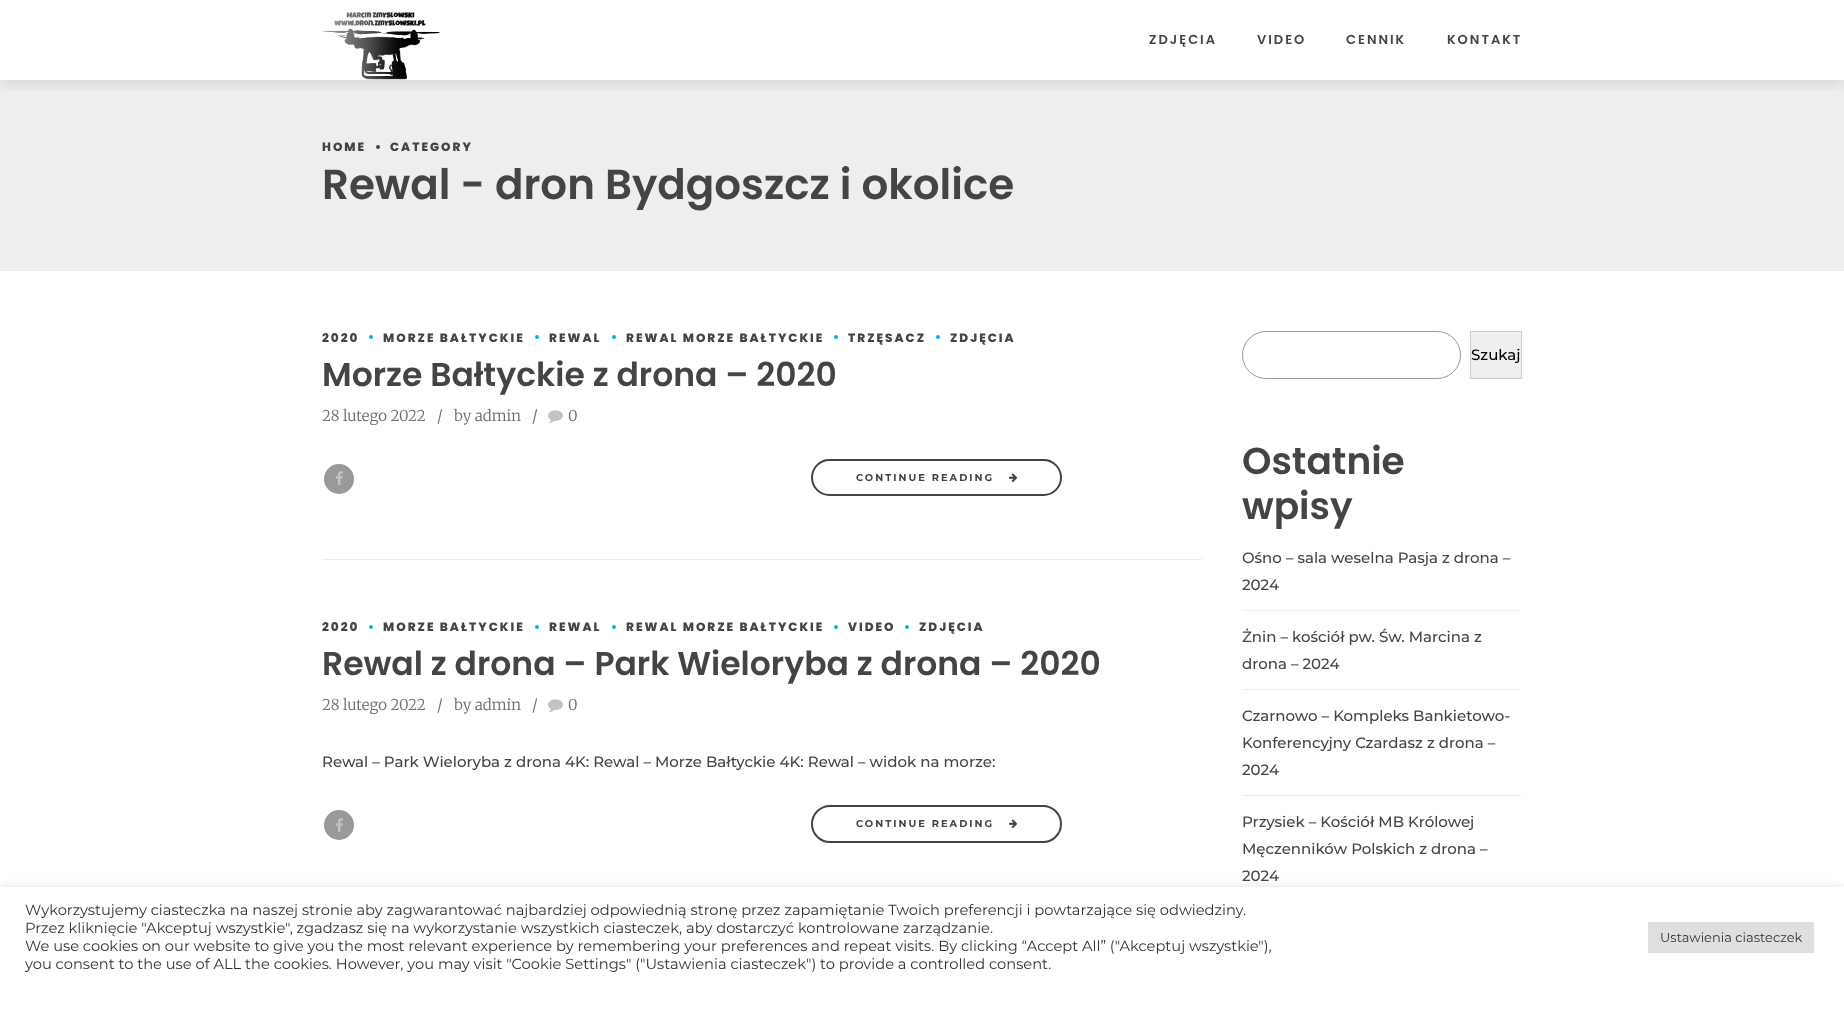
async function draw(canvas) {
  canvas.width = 1844;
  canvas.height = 1016;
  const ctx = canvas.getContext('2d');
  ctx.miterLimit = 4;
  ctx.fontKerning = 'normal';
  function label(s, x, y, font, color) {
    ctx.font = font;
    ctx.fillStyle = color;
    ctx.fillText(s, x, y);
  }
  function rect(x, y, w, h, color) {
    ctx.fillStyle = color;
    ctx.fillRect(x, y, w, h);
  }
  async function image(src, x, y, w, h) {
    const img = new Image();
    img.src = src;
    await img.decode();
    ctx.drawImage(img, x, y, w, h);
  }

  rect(0, 0, 1844, 1016, '#fff');
  rect(0, 80, 1844, 191, '#eee');
  ctx.save();
  ctx.beginPath();
  ctx.rect(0, 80, 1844, 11);
  ctx.clip();
  ctx.fillStyle = '#00000026';
  ctx.filter = 'blur(10px)';
  ctx.beginPath();
  ctx.rect(0, 0, 1844, 80);
  ctx.fill();
  ctx.filter = 'none';
  ctx.restore();
  await image('assets/img1.png', 322, 12, 118, 68);
  ctx.letterSpacing = '2px';
  label('ZDJĘCIA', 1149, 44, '600 13px Poppins', '#444');
  label('VIDEO', 1257, 44, '600 13px Poppins', '#444');
  label('CENNIK', 1346, 44, '600 13px Poppins', '#444');
  label('KONTAKT', 1447, 44, '600 13px Poppins', '#444');
  label('HOME', 322, 151, '800 12px Poppins', '#444');
  ctx.beginPath();
  ctx.arc(378, 147, 2, 0, 2 * Math.PI);
  ctx.fill();
  label('CATEGORY', 390, 151, '800 12px Poppins', '#444');
  ctx.letterSpacing = '0px';
  label('Rewal - dron Bydgoszcz i okolice', 322, 199, '600 42px Poppins', '#444');
  ctx.letterSpacing = '2px';
  label('2020', 322, 342, '800 12px Poppins', '#444');
  ctx.fillStyle = '#01b1ec';
  ctx.beginPath();
  ctx.arc(371, 337, 2, 0, 2 * Math.PI);
  ctx.fill();
  label('MORZE BAŁTYCKIE', 383, 342, '800 12px Poppins', '#444');
  ctx.fillStyle = '#01b1ec';
  ctx.beginPath();
  ctx.arc(537, 337, 2, 0, 2 * Math.PI);
  ctx.fill();
  label('REWAL', 549, 342, '800 12px Poppins', '#444');
  ctx.fillStyle = '#01b1ec';
  ctx.beginPath();
  ctx.arc(614, 337, 2, 0, 2 * Math.PI);
  ctx.fill();
  label('REWAL MORZE BAŁTYCKIE', 626, 342, '800 12px Poppins', '#444');
  ctx.fillStyle = '#01b1ec';
  ctx.beginPath();
  ctx.arc(836, 337, 2, 0, 2 * Math.PI);
  ctx.fill();
  label('TRZĘSACZ', 848, 342, '800 12px Poppins', '#444');
  ctx.fillStyle = '#01b1ec';
  ctx.beginPath();
  ctx.arc(938, 337, 2, 0, 2 * Math.PI);
  ctx.fill();
  label('ZDJĘCIA', 950, 342, '800 12px Poppins', '#444');
  ctx.letterSpacing = '0px';
  label('Morze Bałtyckie z drona – 2020', 322, 386, '600 33px Poppins', '#444');
  label('28 lutego 2022', 322, 421, '300 15px Merriweather', '#696969');
  label('/', 437, 421, '300 15px Merriweather', '#696969');
  label('by admin', 454, 421, '300 15px Merriweather', '#696969');
  label('/', 532, 421, '300 15px Merriweather', '#696969');
  await image('assets/img2.png', 548, 410, 15, 14);
  label('0', 568, 421, '300 15px Merriweather', '#696969');
  ctx.fillStyle = '#999';
  ctx.beginPath();
  ctx.arc(339, 479, 15, 0, 2 * Math.PI);
  ctx.fill();
  await image('assets/img3.png', 335, 471, 8, 14);
  ctx.beginPath();
  ctx.roundRect(812, 460, 249, 35, 17.5);
  ctx.strokeStyle = '#444';
  ctx.lineWidth = 2;
  ctx.stroke();
  ctx.letterSpacing = '2px';
  label('CONTINUE READING', 856, 481, 'bold 9.9px Montserrat', '#444');
  await image('assets/img4.png', 1009, 473, 9, 10);
  rect(322, 559, 880, 1, '#ededed');
  label('2020', 322, 631, '800 12px Poppins', '#444');
  ctx.fillStyle = '#01b1ec';
  ctx.beginPath();
  ctx.arc(371, 627, 2, 0, 2 * Math.PI);
  ctx.fill();
  label('MORZE BAŁTYCKIE', 383, 631, '800 12px Poppins', '#444');
  ctx.fillStyle = '#01b1ec';
  ctx.beginPath();
  ctx.arc(537, 627, 2, 0, 2 * Math.PI);
  ctx.fill();
  label('REWAL', 549, 631, '800 12px Poppins', '#444');
  ctx.fillStyle = '#01b1ec';
  ctx.beginPath();
  ctx.arc(614, 627, 2, 0, 2 * Math.PI);
  ctx.fill();
  label('REWAL MORZE BAŁTYCKIE', 626, 631, '800 12px Poppins', '#444');
  ctx.fillStyle = '#01b1ec';
  ctx.beginPath();
  ctx.arc(836, 627, 2, 0, 2 * Math.PI);
  ctx.fill();
  label('VIDEO', 848, 631, '800 12px Poppins', '#444');
  ctx.fillStyle = '#01b1ec';
  ctx.beginPath();
  ctx.arc(907, 627, 2, 0, 2 * Math.PI);
  ctx.fill();
  label('ZDJĘCIA', 919, 631, '800 12px Poppins', '#444');
  ctx.letterSpacing = '0px';
  label('Rewal z drona – Park Wieloryba z drona – 2020', 322, 675, '600 33px Poppins', '#444');
  label('28 lutego 2022', 322, 710, '300 15px Merriweather', '#696969');
  label('/', 437, 710, '300 15px Merriweather', '#696969');
  label('by admin', 454, 710, '300 15px Merriweather', '#696969');
  label('/', 532, 710, '300 15px Merriweather', '#696969');
  await image('assets/img2.png', 548, 699, 15, 14);
  label('0', 568, 710, '300 15px Merriweather', '#696969');
  label('Rewal – Park Wieloryba z drona 4K: Rewal – Morze Bałtyckie 4K: Rewal – widok na morze:', 322, 767, '500 15px Montserrat', '#444');
  ctx.fillStyle = '#999';
  ctx.beginPath();
  ctx.arc(339, 825, 15, 0, 2 * Math.PI);
  ctx.fill();
  await image('assets/img3.png', 335, 818, 8, 14);
  ctx.beginPath();
  ctx.roundRect(812, 806, 249, 36, 18);
  ctx.stroke();
  ctx.letterSpacing = '2px';
  label('CONTINUE READING', 856, 827, 'bold 9.9px Montserrat', '#444');
  await image('assets/img4.png', 1009, 819, 9, 10);
  ctx.beginPath();
  ctx.roundRect(1242.5, 331.5, 218, 47, 23.5);
  ctx.strokeStyle = '#999';
  ctx.lineWidth = 1;
  ctx.stroke();
  ctx.fillStyle = '#efefef';
  ctx.beginPath();
  ctx.rect(1470.5, 331.5, 51, 47);
  ctx.fill();
  ctx.strokeStyle = '#ccc';
  ctx.stroke();
  ctx.letterSpacing = '0px';
  label('Szukaj', 1471, 360, '500 15px Montserrat', '#000');
  label('Ostatnie', 1242, 474, '600 37.5px Poppins', '#444');
  label('wpisy', 1242, 519, '600 37.5px Poppins', '#444');
  rect(1242, 610, 280, 1, '#ededed');
  label('Ośno – sala weselna Pasja z drona –', 1242, 563, '500 15px Montserrat', '#444');
  label('2024', 1242, 590, '500 15px Montserrat', '#444');
  rect(1242, 689, 280, 1, '#ededed');
  label('Żnin – kościół pw. Św. Marcina z', 1242, 642, '500 15px Montserrat', '#444');
  label('drona – 2024', 1242, 669, '500 15px Montserrat', '#444');
  rect(1242, 795, 280, 1, '#ededed');
  label('Czarnowo – Kompleks Bankietowo-', 1242, 721, '500 15px Montserrat', '#444');
  label('Konferencyjny Czardasz z drona –', 1242, 748, '500 15px Montserrat', '#444');
  label('2024', 1242, 775, '500 15px Montserrat', '#444');
  label('Przysiek – Kościół MB Królowej', 1242, 827, '500 15px Montserrat', '#444');
  label('Męczenników Polskich z drona –', 1242, 854, '500 15px Montserrat', '#444');
  label('2024', 1242, 881, '500 15px Montserrat', '#444');
  ctx.fillStyle = '#acabab4d';
  ctx.filter = 'blur(5px)';
  ctx.beginPath();
  ctx.rect(0, 886, 1844, 129);
  ctx.fill();
  ctx.filter = 'none';
  rect(0, 887, 1844, 129, '#fff');
  label('Wykorzystujemy ciasteczka na naszej stronie aby zagwarantować najbardziej odpowiednią stronę przez zapamiętanie Twoich preferencji i powtarzające się odwiedziny.', 25, 915, '14.67px Montserrat', '#333');
  label('Przez kliknięcie "Akceptuj wszystkie", zgadzasz się na wykorzystanie wszystkich ciasteczek, aby dostarczyć kontrolowane zarządzanie.', 25, 933, '14.67px Montserrat', '#333');
  label('We use cookies on our website to give you the most relevant experience by remembering your preferences and repeat visits. By clicking “Accept All” ("Akceptuj wszystkie"),', 25, 951, '14.67px Montserrat', '#333');
  label('you consent to the use of ALL the cookies. However, you may visit "Cookie Settings" ("Ustawienia ciasteczek") to provide a controlled consent.', 25, 969, '14.67px Montserrat', '#333');
  rect(1648, 922, 166, 31, '#dedfe0');
  label('Ustawienia ciasteczek', 1660, 942, '13px Montserrat', '#333');
}

draw(document.querySelector('canvas'));
